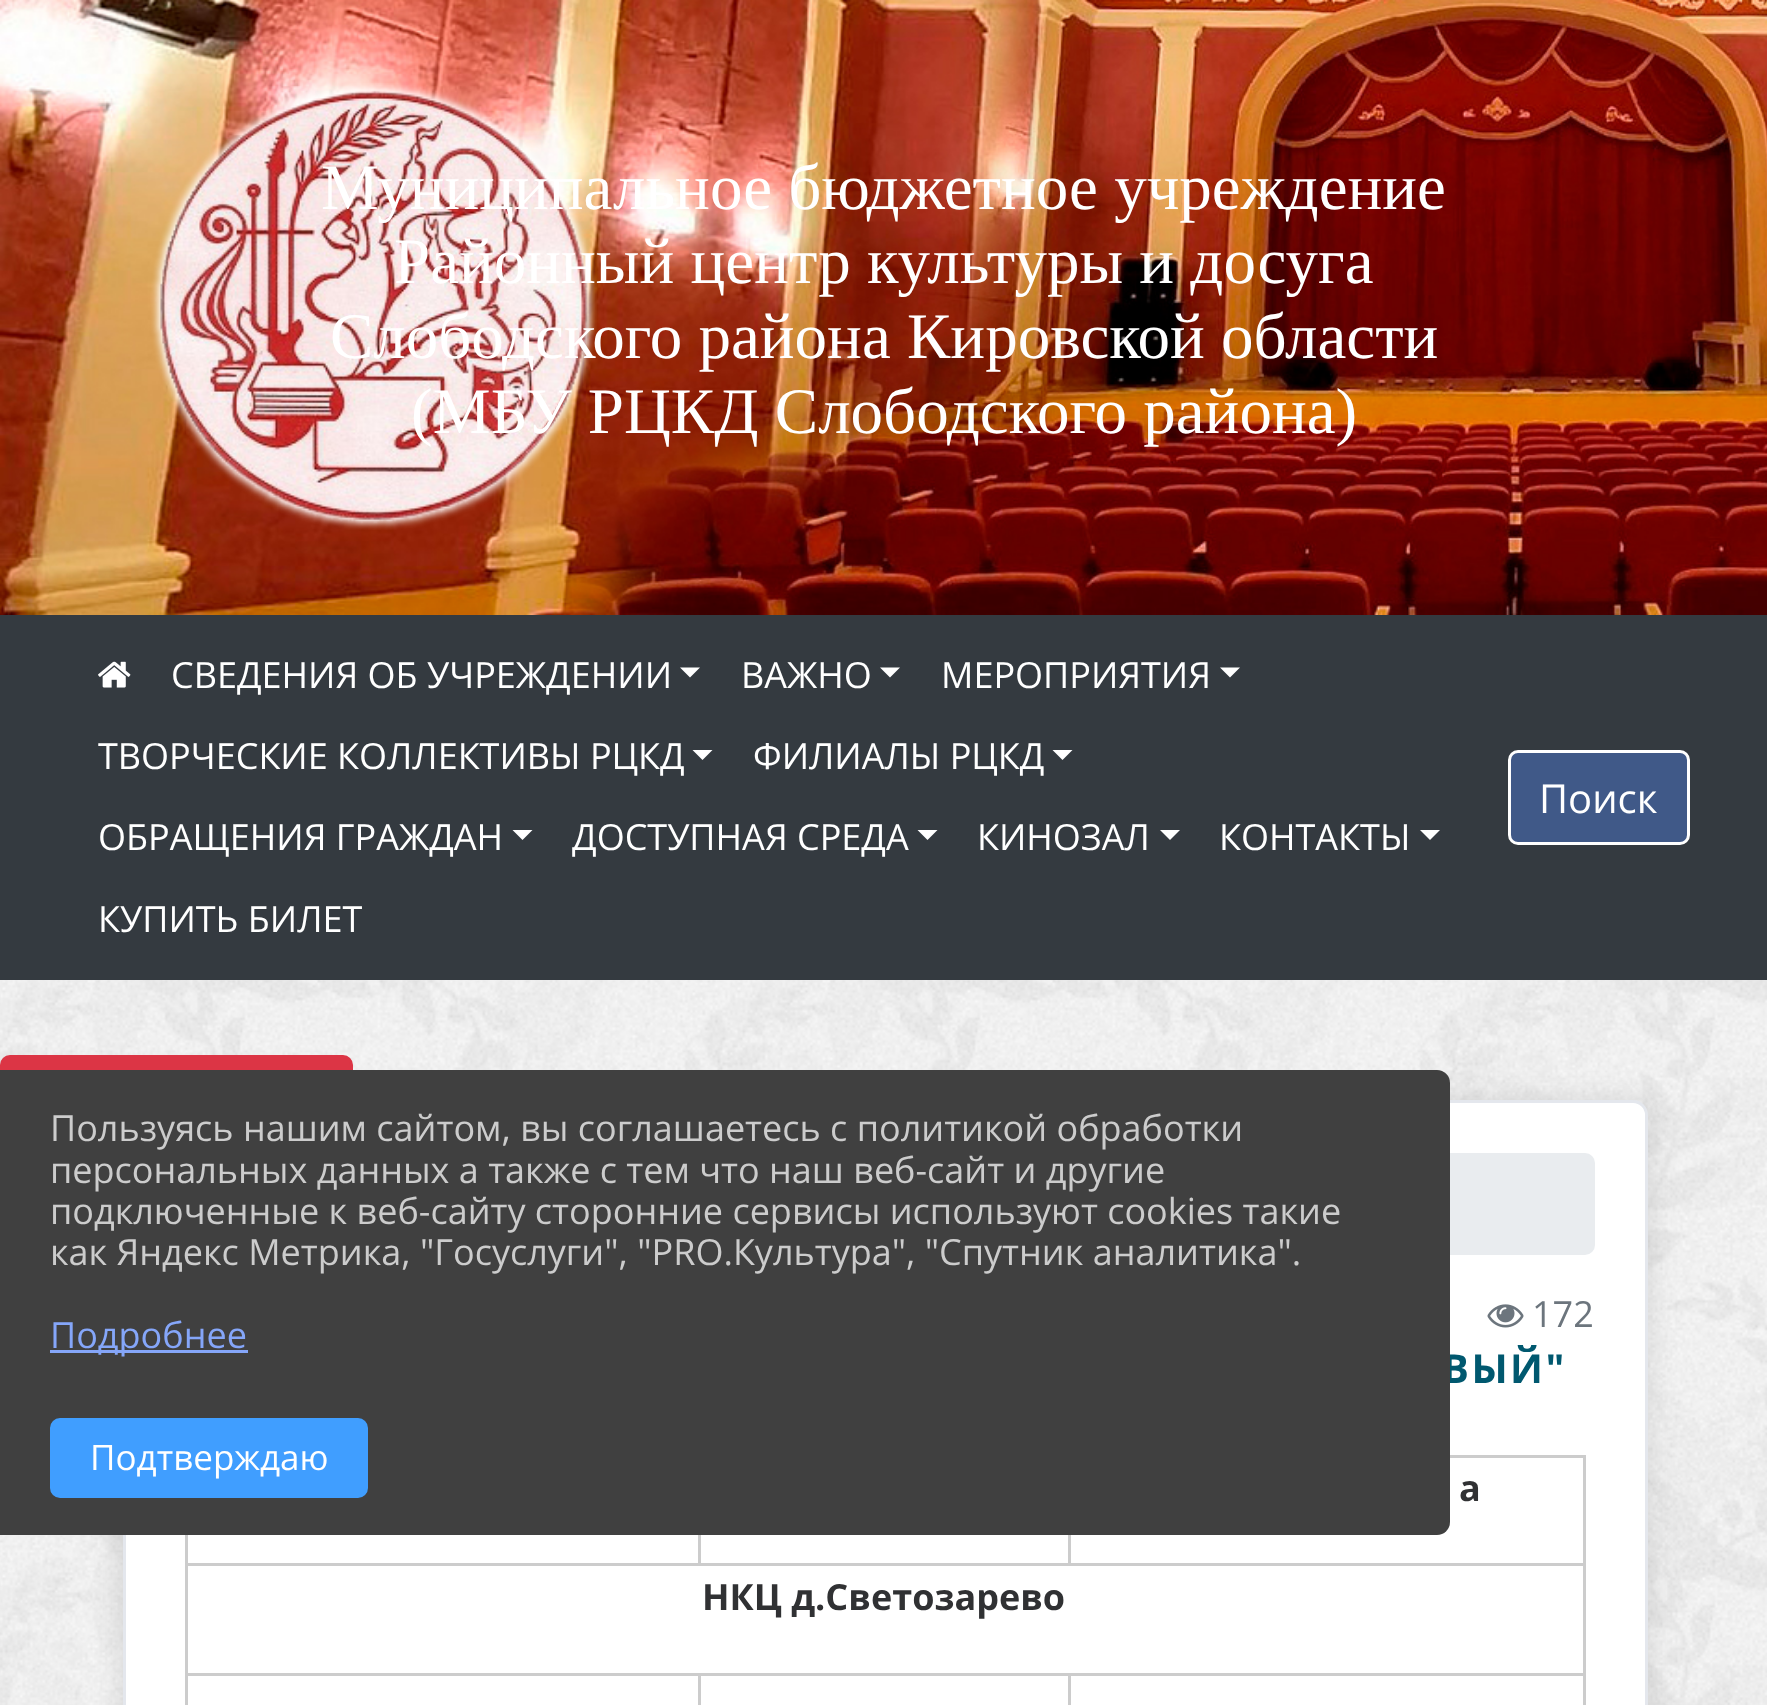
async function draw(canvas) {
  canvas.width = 1767;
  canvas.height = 1705;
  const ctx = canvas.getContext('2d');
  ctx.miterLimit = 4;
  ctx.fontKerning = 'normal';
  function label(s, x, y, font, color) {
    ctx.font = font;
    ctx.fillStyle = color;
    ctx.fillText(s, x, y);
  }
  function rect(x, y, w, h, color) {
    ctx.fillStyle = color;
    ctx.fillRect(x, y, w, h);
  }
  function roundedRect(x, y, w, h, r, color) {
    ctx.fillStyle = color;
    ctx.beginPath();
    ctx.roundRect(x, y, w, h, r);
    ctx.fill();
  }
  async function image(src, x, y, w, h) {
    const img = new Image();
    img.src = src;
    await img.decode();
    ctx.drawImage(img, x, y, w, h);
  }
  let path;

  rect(0, 0, 1767, 1705, '#fff');
  await image('assets/img1.png', 0, 980, 1767, 725);
  await image('assets/img2.png', 0, 0, 1767, 615);
  await image('assets/img3.png', 150, 83, 447, 447);
  label('Муниципальное бюджетное учреждение', 321, 209, '65px Liberation Serif', '#fff');
  label('Районный центр культуры и досуга', 394, 283, '65px Liberation Serif', '#fff');
  label('Слободского района Кировской области', 330, 358, '65px Liberation Serif', '#fff');
  label('(МБУ РЦКД Слободского района)', 411, 433, '65px Liberation Serif', '#fff');
  rect(0, 615, 1767, 365, '#343a40');
  await image('assets/img4.png', 98, 661, 33, 27);
  label('СВЕДЕНИЯ ОБ УЧРЕЖДЕНИИ', 171, 688, '36px Open Sans', '#fff');
  path = new Path2D('M680 667.5H700L690 677.5Z');
  ctx.fill(path);
  label('ВАЖНО', 741, 688, '36px Open Sans', '#fff');
  path = new Path2D('M880 667.5H900L890 677.5Z');
  ctx.fill(path);
  label('МЕРОПРИЯТИЯ', 941, 688, '36px Open Sans', '#fff');
  path = new Path2D('M1220 667.5H1240L1230 677.5Z');
  ctx.fill(path);
  label('ТВОРЧЕСКИЕ КОЛЛЕКТИВЫ РЦКД', 98, 769, '36px Open Sans', '#fff');
  path = new Path2D('M692.5 750H712.5L702.5 760Z');
  ctx.fill(path);
  label('ФИЛИАЛЫ РЦКД', 753, 769, '36px Open Sans', '#fff');
  path = new Path2D('M1052.5 750H1072.5L1062.5 760Z');
  ctx.fill(path);
  label('ОБРАЩЕНИЯ ГРАЖДАН', 98, 850, '36px Open Sans', '#fff');
  path = new Path2D('M512.5 830H532.5L522.5 840Z');
  ctx.fill(path);
  label('ДОСТУПНАЯ СРЕДА', 572, 850, '36px Open Sans', '#fff');
  path = new Path2D('M917.5 830H937.5L927.5 840Z');
  ctx.fill(path);
  label('КИНОЗАЛ', 977, 850, '36px Open Sans', '#fff');
  path = new Path2D('M1160 830H1180L1170 840Z');
  ctx.fill(path);
  label('КОНТАКТЫ', 1219, 850, '36px Open Sans', '#fff');
  path = new Path2D('M1420 830H1440L1430 840Z');
  ctx.fill(path);
  label('КУПИТЬ БИЛЕТ', 98, 932, '36px Open Sans', '#fff');
  ctx.fillStyle = '#405988';
  ctx.beginPath();
  ctx.roundRect(1509.5, 751.5, 179, 92, 8.5);
  ctx.fill();
  ctx.strokeStyle = '#fff';
  ctx.lineWidth = 3;
  ctx.stroke();
  label('Поиск', 1539, 813, '40px Open Sans', '#fff');
  ctx.fillStyle = '#0000001f';
  ctx.filter = 'blur(15px)';
  ctx.beginPath();
  ctx.roundRect(123, 1100, 1525, 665, 15);
  ctx.fill();
  ctx.filter = 'none';
  ctx.fillStyle = '#fff';
  ctx.beginPath();
  ctx.roundRect(124.5, 1101.5, 1522, 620, 13.5);
  ctx.fill();
  ctx.strokeStyle = '#e4e7ed';
  ctx.stroke();
  roundedRect(175, 1153, 1420, 102, 10, '#e9ecef');
  await image('assets/img5.png', 1487, 1304, 37, 24);
  label('172', 1532, 1327, '36px Open Sans', '#6c757d');
  ctx.letterSpacing = '2.5px';
  label('ВЫЙ"', 1442, 1383, 'bold 40px Open Sans', '#00586f');
  rect(1450, 1455, 135, 3, '#ccc');
  rect(1583, 1455, 3, 250, '#ccc');
  rect(185, 1535, 3, 170, '#ccc');
  rect(185, 1563, 1400, 3, '#ccc');
  rect(1068, 1535, 3, 30, '#ccc');
  ctx.letterSpacing = '0px';
  label('а', 1459, 1501, 'bold 36px Open Sans', '#303133');
  rect(698, 1535, 3, 30, '#ccc');
  label('НКЦ д.Светозарево', 702, 1610, 'bold 36px Open Sans', '#303133');
  rect(1068, 1673, 517, 3, '#ccc');
  rect(1068, 1673, 3, 32, '#ccc');
  rect(698, 1673, 372, 3, '#ccc');
  rect(698, 1673, 3, 32, '#ccc');
  rect(185, 1673, 515, 3, '#ccc');
  ctx.fillStyle = '#00000059';
  ctx.filter = 'blur(10px)';
  ctx.beginPath();
  ctx.roundRect(-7, 1073, 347, 210, 8);
  ctx.fill();
  ctx.filter = 'none';
  ctx.fillStyle = '#dc3545';
  ctx.beginPath();
  ctx.roundRect(1.5, 1056.5, 350, 212, 8.5);
  ctx.fill();
  ctx.strokeStyle = '#dc3545';
  ctx.stroke();
  ctx.fillStyle = '#404040';
  ctx.beginPath();
  ctx.roundRect(0, 1070, 1450, 465, [0, 13, 13, 0]);
  ctx.fill();
  label('Пользуясь нашим сайтом, вы соглашаетесь с политикой обработки', 50, 1141, '36px Open Sans', '#ccc');
  label('персональных данных а также с тем что наш веб-сайт и другие', 50, 1183, '36px Open Sans', '#ccc');
  label('подключенные к веб-сайту сторонние сервисы используют cookies такие', 50, 1224, '36px Open Sans', '#ccc');
  label('как Яндекс Метрика, "Госуслуги", "PRO.Культура", "Спутник аналитика".', 50, 1265, '36px Open Sans', '#ccc');
  rect(50, 1350, 198, 3, '#85a6f9');
  label('Подробнее', 50, 1348, '36px Open Sans', '#85a6f9');
  ctx.fillStyle = '#409eff';
  ctx.beginPath();
  ctx.roundRect(51.5, 1419.5, 315, 77, 8.5);
  ctx.fill();
  ctx.strokeStyle = '#409eff';
  ctx.stroke();
  label('Подтверждаю', 90, 1470, '35px Open Sans', '#fff');
}

draw(document.querySelector('canvas'));
